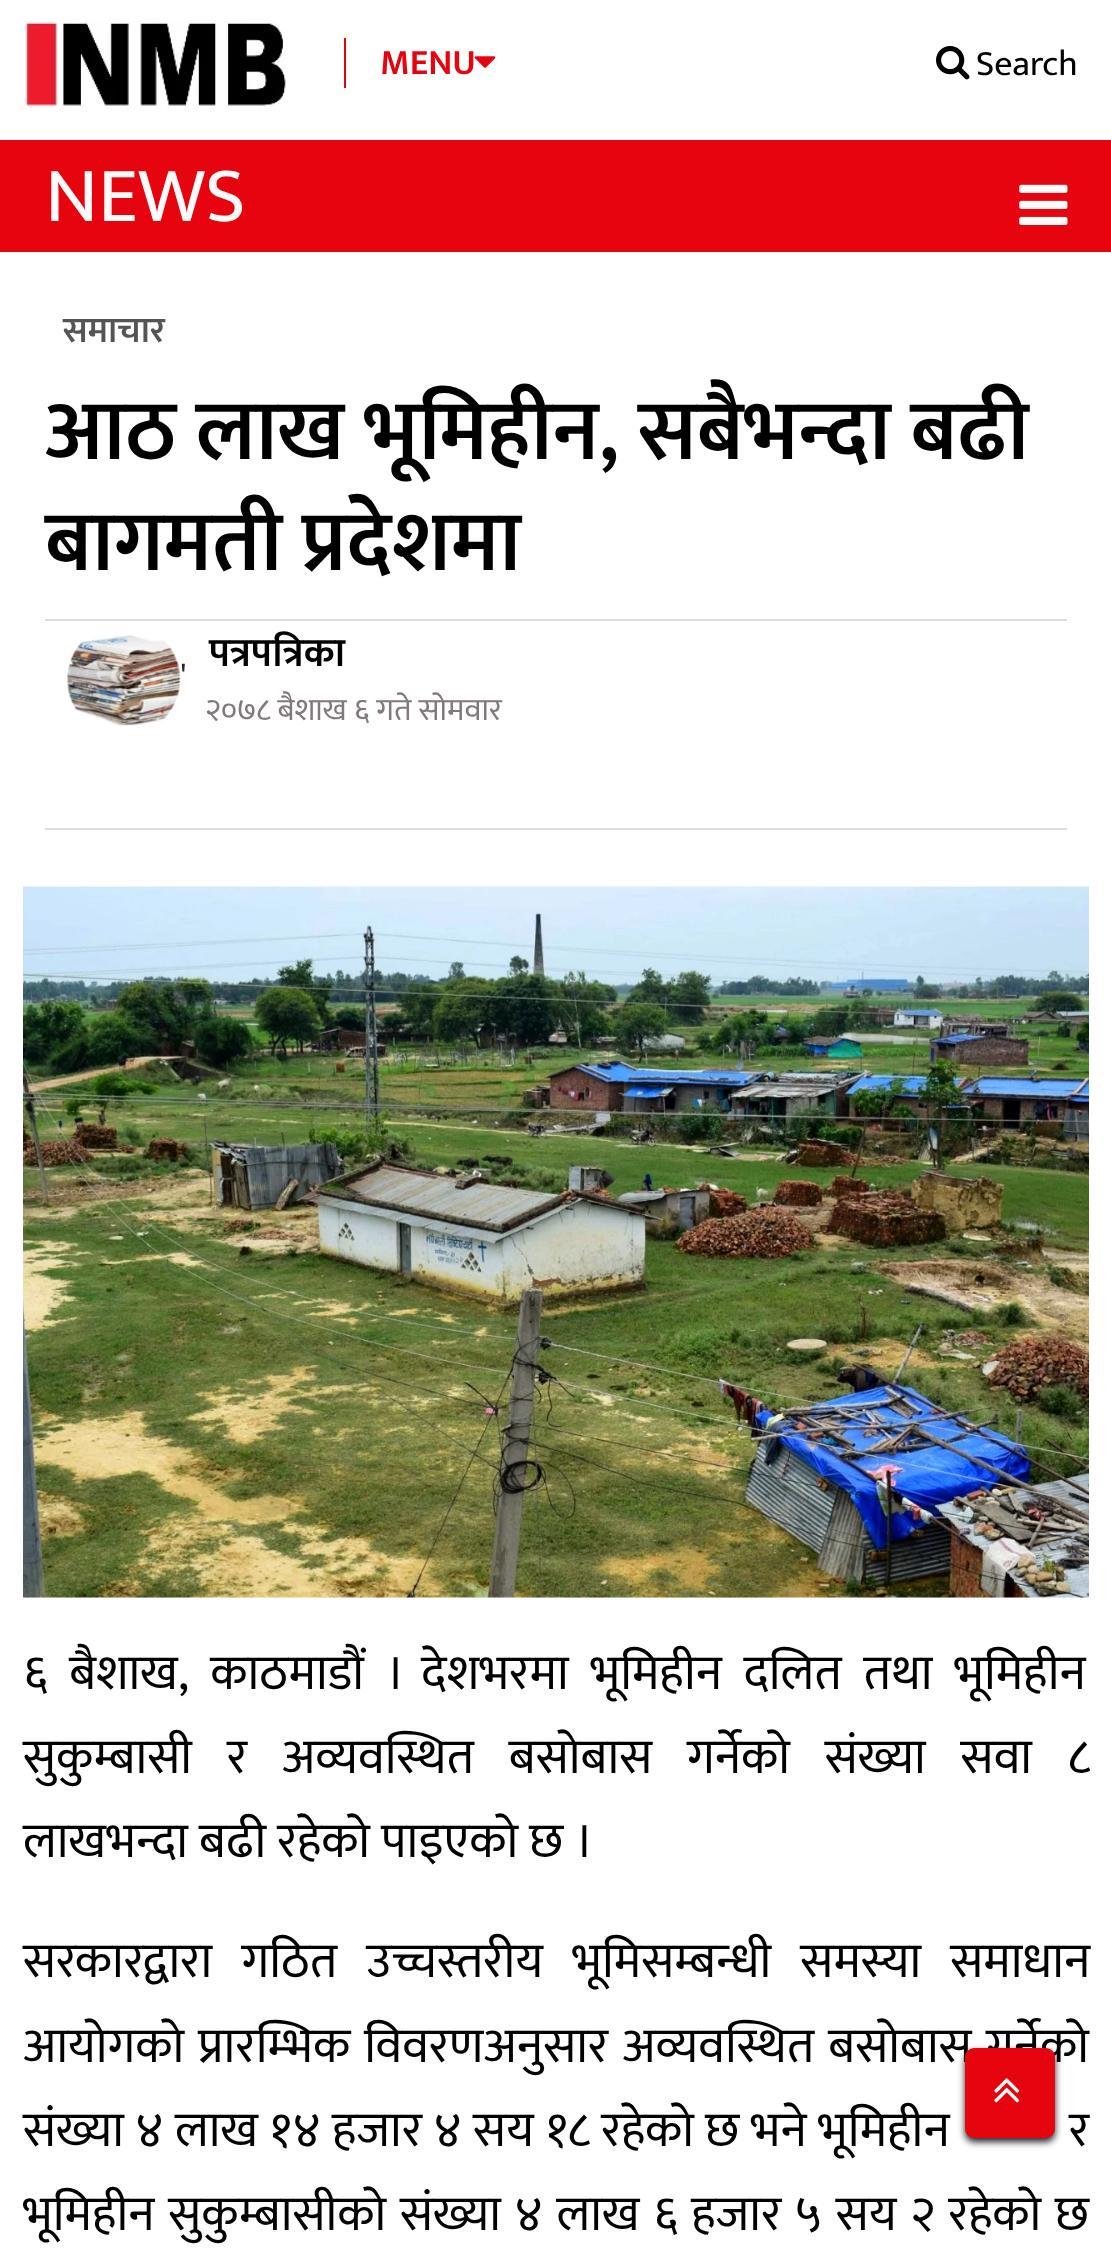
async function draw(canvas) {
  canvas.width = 1111;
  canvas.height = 2250;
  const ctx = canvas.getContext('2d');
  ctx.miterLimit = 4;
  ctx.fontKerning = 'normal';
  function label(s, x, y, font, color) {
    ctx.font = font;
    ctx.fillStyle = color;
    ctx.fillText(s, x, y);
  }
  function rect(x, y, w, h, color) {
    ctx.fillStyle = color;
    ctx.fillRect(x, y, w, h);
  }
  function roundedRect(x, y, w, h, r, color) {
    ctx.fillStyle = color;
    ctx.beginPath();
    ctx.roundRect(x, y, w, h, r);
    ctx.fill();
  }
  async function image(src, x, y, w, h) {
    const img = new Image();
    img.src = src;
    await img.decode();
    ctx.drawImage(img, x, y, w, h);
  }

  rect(0, 0, 1111, 2250, '#fff');
  await image('assets/img1.png', 22, 20, 264, 90);
  rect(344, 38, 2, 50, '#e60505');
  label('MENU', 380, 74, '600 36px Mukta', '#e6050f');
  await image('assets/img2.png', 474, 56, 22, 12);
  await image('assets/img3.png', 936, 46, 34, 34);
  label('Search', 976, 75, '36px Mukta', '#000');
  rect(0, 140, 1111, 112, '#e6050f');
  label('NEWS', 45, 221, '79px Mukta', '#fffafa');
  await image('assets/img4.png', 1019, 184, 49, 41);
  label('समाचार', 63, 342, '600 36px Mukta', '#555');
  label('आठ लाख भूमिहीन, सबैभन्दा बढी', 45, 459, '600 85.5px Mukta', '#000');
  label('बागमती प्रदेशमा', 45, 570, '600 85.5px Mukta', '#000');
  rect(45, 619, 1022, 2, '#ddd');
  rect(45, 828, 1022, 2, '#ddd');
  await image('assets/img5.png', 67, 635, 114, 91);
  label('\'', 180, 687, '36px Mukta', '#212529');
  label('पत्रपत्रिका', 209, 666, '600 40.5px Mukta', '#000');
  label('२०७८ बैशाख ६ गते सोमवार', 205, 720, '31.5px Mukta', '#827a7a');
  await image('assets/img6.png', 23, 886, 1066, 712);
  ctx.wordSpacing = '10.75px';
  label('६ बैशाख, काठमाडौं । देशभरमा भूमिहीन दलित तथा भूमिहीन', 23, 1689, '49.5px Mukta', '#000');
  ctx.wordSpacing = '23.75px';
  label('सुकुम्बासी र अव्यवस्थित बसोबास गर्नेको संख्या सवा ८', 23, 1773, '49.5px Mukta', '#000');
  ctx.wordSpacing = '0px';
  label('लाखभन्दा बढी रहेको पाइएको छ ।', 23, 1857, '49.5px Mukta', '#000');
  ctx.wordSpacing = '18px';
  label('सरकारद्वारा गठित उच्चस्तरीय भूमिसम्बन्धी समस्या समाधान', 23, 1977, '49.5px Mukta', '#000');
  ctx.wordSpacing = '3px';
  label('आयोगको प्रारम्भिक विवरणअनुसार अव्यवस्थित बसोबास गर्नेको', 23, 2062, '49.5px Mukta', '#000');
  ctx.wordSpacing = '0.25px';
  label('संख्या ४ लाख १४ हजार ४ सय १८ रहेको छ भने भूमिहीन', 23, 2146, '49.5px Mukta', '#000');
  label('र', 1069, 2146, '49.5px Mukta', '#000');
  ctx.wordSpacing = '2.6px';
  label('भूमिहीन सुकुम्बासीको संख्या ४ लाख ६ हजार ५ सय २ रहेको छ', 23, 2230, '49.5px Mukta', '#000');
  ctx.fillStyle = '#212529';
  ctx.filter = 'blur(3.5px)';
  ctx.beginPath();
  ctx.roundRect(965, 2052, 90, 90, 9);
  ctx.fill();
  ctx.filter = 'none';
  roundedRect(965, 2048, 90, 90, 9, '#e6050f');
  await image('assets/img7.png', 994, 2078, 26, 25);
}

draw(document.querySelector('canvas'));
